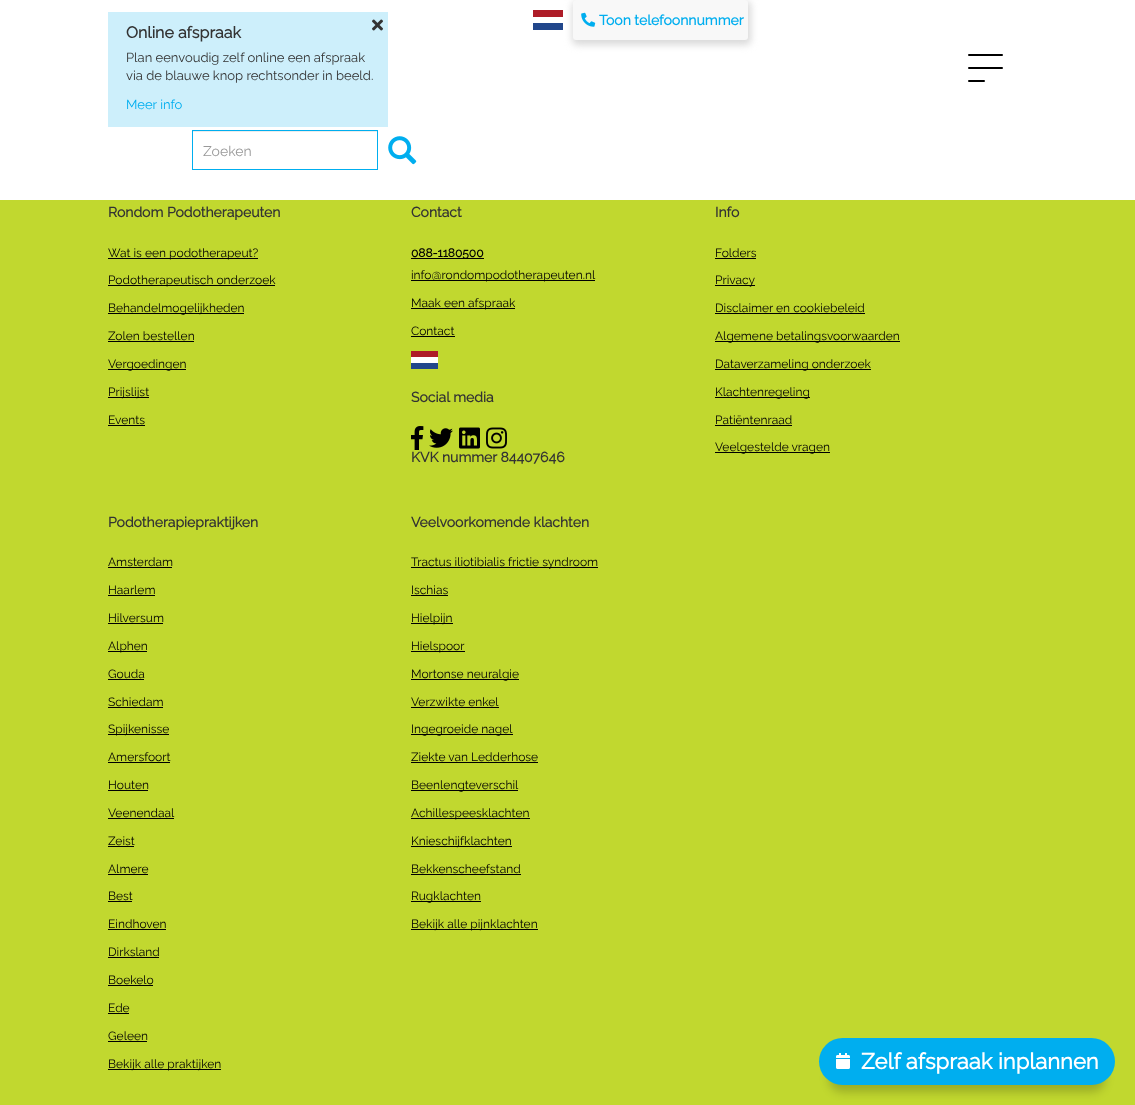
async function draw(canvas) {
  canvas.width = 1135;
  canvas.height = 1105;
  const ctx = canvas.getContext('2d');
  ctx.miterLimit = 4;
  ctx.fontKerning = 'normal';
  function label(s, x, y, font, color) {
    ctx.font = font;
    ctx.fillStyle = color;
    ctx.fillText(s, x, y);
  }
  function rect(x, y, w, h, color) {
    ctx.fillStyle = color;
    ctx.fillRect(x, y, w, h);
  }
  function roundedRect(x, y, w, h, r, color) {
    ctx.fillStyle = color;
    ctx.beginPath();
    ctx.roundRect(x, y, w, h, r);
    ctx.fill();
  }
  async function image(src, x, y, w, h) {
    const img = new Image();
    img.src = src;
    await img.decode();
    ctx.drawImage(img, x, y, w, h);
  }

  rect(0, 0, 1135, 1105, '#c1d82f');
  rect(0, 0, 1135, 200, '#fff');
  await image('assets/img1.png', 533, 10, 30, 20);
  ctx.fillStyle = '#dadada';
  ctx.filter = 'blur(3.5px)';
  ctx.beginPath();
  ctx.roundRect(572, 1, 179, 44, 5);
  ctx.fill();
  ctx.filter = 'none';
  roundedRect(573, 0, 175, 40, 3, '#f8f8f8');
  await image('assets/img2.png', 581, 12, 15, 15);
  label('Toon telefoonnummer', 599, 25, 'bold 14px Raleway', '#00aeef');
  rect(108, 12, 280, 115, '#cdeffb');
  label('Online afspraak', 126, 38, 'bold 16px Raleway', '#333');
  label('Plan eenvoudig zelf online een afspraak', 126, 62, '100 13px Raleway', '#333');
  label('via de blauwe knop rechtsonder in beeld.', 126, 80, '100 13px Raleway', '#333');
  label('Meer info', 126, 109, '100 13px Raleway', '#00aeef');
  await image('assets/img3.png', 372, 19, 11, 12);
  roundedRect(968, 54, 35, 2, 1, '#000');
  roundedRect(968, 67, 35, 2, 1, '#000');
  roundedRect(968, 80, 17, 2, 1, '#000');
  rect(193, 131, 184, 1, '#ececec');
  ctx.strokeStyle = '#00aeef';
  ctx.strokeRect(192.5, 130.5, 185, 39);
  label('Zoeken', 203, 156, '100 14px Raleway', '#999');
  await image('assets/img4.png', 388, 136, 29, 29);
  label('Rondom Podotherapeuten', 108, 217, 'bold 14px Raleway', '#333');
  rect(108, 258, 150, 1, '#000');
  label('Wat is een podotherapeut?', 108, 257, '100 12px Raleway', '#000');
  rect(108, 285, 167, 1, '#000');
  label('Podotherapeutisch onderzoek', 108, 284, '100 12px Raleway', '#000');
  rect(108, 313, 136, 1, '#000');
  label('Behandelmogelijkheden', 108, 312, '100 12px Raleway', '#000');
  label('Zolen bestellen', 108, 340, '100 12px Raleway', '#000');
  rect(108, 341, 86, 1, '#000');
  rect(108, 369, 78, 1, '#000');
  label('Vergoedingen', 108, 368, '100 12px Raleway', '#000');
  rect(108, 397, 41, 1, '#000');
  label('Prijslijst', 108, 396, '100 12px Raleway', '#000');
  label('Events', 108, 424, '100 12px Raleway', '#000');
  rect(108, 425, 37, 1, '#000');
  label('Contact', 411, 217, 'bold 14px Raleway', '#333');
  rect(411, 258, 73, 1, '#000');
  label('088-1180500', 411, 257, 'bold 12px Raleway', '#000');
  rect(411, 280, 184, 1, '#000');
  label('info@rondompodotherapeuten.nl', 411, 279, '100 12px Raleway', '#000');
  rect(411, 308, 104, 1, '#000');
  label('Maak een afspraak', 411, 307, '100 12px Raleway', '#000');
  label('Contact', 411, 335, '100 12px Raleway', '#000');
  rect(411, 336, 44, 1, '#000');
  await image('assets/img5.png', 411, 351, 27, 18);
  label('Social media', 411, 402, 'bold 14px Raleway', '#333');
  await image('assets/img6.png', 411, 426, 13, 24);
  await image('assets/img7.png', 429, 428, 24, 20);
  await image('assets/img8.png', 459, 427, 21, 22);
  await image('assets/img9.png', 486, 427, 21, 22);
  label('KVK nummer 84407646', 411, 462, 'bold 14px Raleway', '#333');
  label('Info', 715, 217, 'bold 14px Raleway', '#333');
  label('Folders', 715, 257, '100 12px Raleway', '#000');
  rect(715, 258, 41, 1, '#000');
  rect(715, 285, 40, 1, '#000');
  label('Privacy', 715, 284, '100 12px Raleway', '#000');
  label('Disclaimer en cookiebeleid', 715, 312, '100 12px Raleway', '#000');
  rect(715, 313, 150, 1, '#000');
  rect(715, 341, 185, 1, '#000');
  label('Algemene betalingsvoorwaarden', 715, 340, '100 12px Raleway', '#000');
  rect(715, 369, 156, 1, '#000');
  label('Dataverzameling onderzoek', 715, 368, '100 12px Raleway', '#000');
  rect(715, 397, 95, 1, '#000');
  label('Klachtenregeling', 715, 396, '100 12px Raleway', '#000');
  label('Patiëntenraad', 715, 424, '100 12px Raleway', '#000');
  rect(715, 425, 77, 1, '#000');
  rect(715, 452, 115, 1, '#000');
  label('Veelgestelde vragen', 715, 451, '100 12px Raleway', '#000');
  label('Podotherapiepraktijken', 108, 527, 'bold 14px Raleway', '#333');
  label('Amsterdam', 108, 566, '100 12px Raleway', '#000');
  rect(108, 567, 64, 1, '#000');
  label('Haarlem', 108, 594, '100 12px Raleway', '#000');
  rect(108, 595, 47, 1, '#000');
  label('Hilversum', 108, 622, '100 12px Raleway', '#000');
  rect(108, 623, 55, 1, '#000');
  rect(108, 651, 39, 1, '#000');
  label('Alphen', 108, 650, '100 12px Raleway', '#000');
  label('Gouda', 108, 678, '100 12px Raleway', '#000');
  rect(108, 679, 36, 1, '#000');
  label('Schiedam', 108, 706, '100 12px Raleway', '#000');
  rect(108, 707, 55, 1, '#000');
  rect(108, 734, 61, 1, '#000');
  label('Spijkenisse', 108, 733, '100 12px Raleway', '#000');
  label('Amersfoort', 108, 761, '100 12px Raleway', '#000');
  rect(108, 762, 62, 1, '#000');
  label('Houten', 108, 789, '100 12px Raleway', '#000');
  rect(108, 790, 40, 1, '#000');
  label('Veenendaal', 108, 817, '100 12px Raleway', '#000');
  rect(108, 818, 66, 1, '#000');
  label('Zeist', 108, 845, '100 12px Raleway', '#000');
  rect(108, 846, 26, 1, '#000');
  label('Almere', 108, 873, '100 12px Raleway', '#000');
  rect(108, 874, 40, 1, '#000');
  label('Best', 108, 900, '100 12px Raleway', '#000');
  rect(108, 901, 24, 1, '#000');
  label('Eindhoven', 108, 928, '100 12px Raleway', '#000');
  rect(108, 929, 58, 1, '#000');
  label('Dirksland', 108, 956, '100 12px Raleway', '#000');
  rect(108, 957, 51, 1, '#000');
  label('Boekelo', 108, 984, '100 12px Raleway', '#000');
  rect(108, 985, 45, 1, '#000');
  label('Ede', 108, 1012, '100 12px Raleway', '#000');
  rect(108, 1013, 21, 1, '#000');
  label('Geleen', 108, 1040, '100 12px Raleway', '#000');
  rect(108, 1041, 39, 1, '#000');
  rect(108, 1069, 113, 1, '#000');
  label('Bekijk alle praktijken', 108, 1068, '100 12px Raleway', '#000');
  label('Veelvoorkomende klachten', 411, 527, 'bold 14px Raleway', '#333');
  rect(411, 567, 187, 1, '#000');
  label('Tractus iliotibialis frictie syndroom', 411, 566, '100 12px Raleway', '#000');
  label('Ischias', 411, 594, '100 12px Raleway', '#000');
  rect(411, 595, 37, 1, '#000');
  rect(411, 623, 42, 1, '#000');
  label('Hielpijn', 411, 622, '100 12px Raleway', '#000');
  rect(411, 651, 54, 1, '#000');
  label('Hielspoor', 411, 650, '100 12px Raleway', '#000');
  rect(411, 679, 108, 1, '#000');
  label('Mortonse neuralgie', 411, 678, '100 12px Raleway', '#000');
  label('Verzwikte enkel', 411, 706, '100 12px Raleway', '#000');
  rect(411, 707, 88, 1, '#000');
  rect(411, 734, 102, 1, '#000');
  label('Ingegroeide nagel', 411, 733, '100 12px Raleway', '#000');
  label('Ziekte van Ledderhose', 411, 761, '100 12px Raleway', '#000');
  rect(411, 762, 127, 1, '#000');
  rect(411, 790, 107, 1, '#000');
  label('Beenlengteverschil', 411, 789, '100 12px Raleway', '#000');
  rect(411, 818, 119, 1, '#000');
  label('Achillespeesklachten', 411, 817, '100 12px Raleway', '#000');
  rect(411, 846, 101, 1, '#000');
  label('Knieschijfklachten', 411, 845, '100 12px Raleway', '#000');
  label('Bekkenscheefstand', 411, 873, '100 12px Raleway', '#000');
  rect(411, 874, 110, 1, '#000');
  rect(411, 901, 70, 1, '#000');
  label('Rugklachten', 411, 900, '100 12px Raleway', '#000');
  rect(411, 929, 127, 1, '#000');
  label('Bekijk alle pijnklachten', 411, 928, '100 12px Raleway', '#000');
  ctx.fillStyle = '#00000033';
  ctx.filter = 'blur(5px)';
  ctx.beginPath();
  ctx.roundRect(829, 1065, 276, 27, 13.5);
  ctx.fill();
  ctx.filter = 'none';
  roundedRect(819, 1038, 296, 47, 23.5, '#00aeef');
  await image('assets/img10.png', 836, 1053, 14, 16);
  label('Zelf afspraak inplannen', 861, 1069, 'bold 22px Raleway', '#fff');
}

draw(document.querySelector('canvas'));
